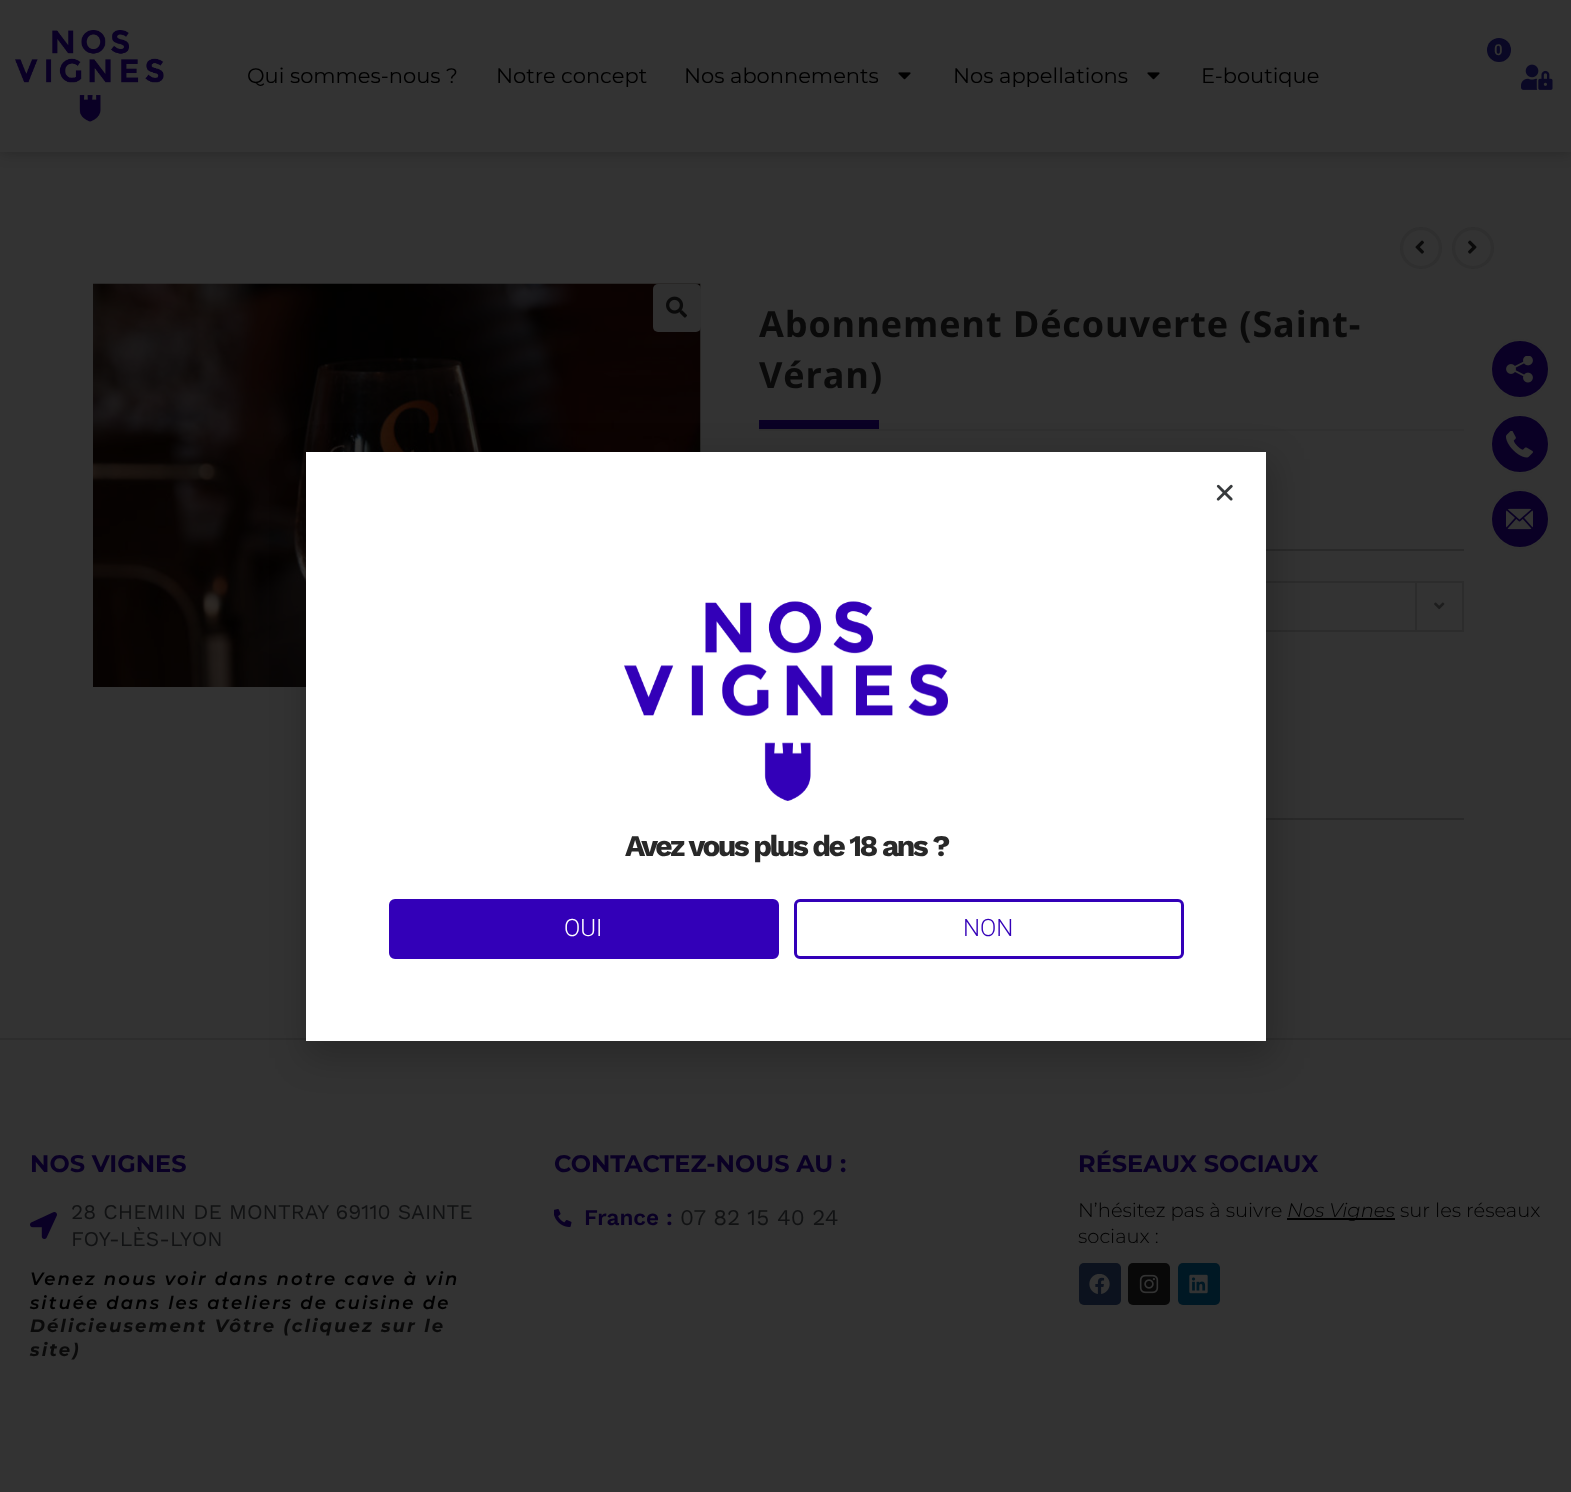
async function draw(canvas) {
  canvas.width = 1571;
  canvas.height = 1492;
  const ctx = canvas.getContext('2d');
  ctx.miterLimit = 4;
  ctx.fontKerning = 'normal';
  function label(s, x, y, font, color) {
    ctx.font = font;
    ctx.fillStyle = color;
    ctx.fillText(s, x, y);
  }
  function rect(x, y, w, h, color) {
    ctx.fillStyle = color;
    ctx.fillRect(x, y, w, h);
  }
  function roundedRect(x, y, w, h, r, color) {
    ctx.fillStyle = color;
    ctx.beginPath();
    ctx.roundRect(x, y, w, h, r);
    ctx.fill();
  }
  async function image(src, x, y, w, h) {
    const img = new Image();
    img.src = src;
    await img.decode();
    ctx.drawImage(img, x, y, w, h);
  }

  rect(0, 0, 1571, 1492, '#333');
  ctx.fillStyle = '#00000040';
  ctx.filter = 'blur(7.5px)';
  ctx.beginPath();
  ctx.rect(0, 0, 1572, 152);
  ctx.fill();
  ctx.filter = 'none';
  rect(0, 0, 1571, 152, '#333');
  await image('assets/img1.png', 15, 30, 149, 92);
  ctx.fillStyle = '#0a0825';
  ctx.beginPath();
  ctx.arc(1499, 50, 12, 0, 2 * Math.PI);
  ctx.fill();
  label('0', 1494, 55, '600 15px Roboto', '#333');
  await image('assets/img2.png', 1521, 64, 32, 26);
  label('Qui sommes-nous ?', 247, 83, '21px Montserrat', '#000');
  label('Notre concept', 496, 83, '21px Montserrat', '#000');
  label('Nos abonnements', 684, 83, '21px Montserrat', '#000');
  await image('assets/img3.png', 898, 72, 13, 8);
  label('Nos appellations', 953, 83, '21px Montserrat', '#000');
  await image('assets/img3.png', 1147, 72, 13, 8);
  label('E-boutique', 1201, 83, '21px Montserrat', '#000');
  ctx.beginPath();
  ctx.arc(1421, 248, 19.5, 0, 2 * Math.PI);
  ctx.strokeStyle = '#2f2f2f';
  ctx.lineWidth = 3;
  ctx.stroke();
  await image('assets/img4.png', 1415, 240, 9, 14);
  ctx.beginPath();
  ctx.arc(1473, 248, 19.5, 0, 2 * Math.PI);
  ctx.stroke();
  await image('assets/img5.png', 1468, 240, 9, 14);
  await image('assets/img6.png', 93, 283, 608, 404);
  roundedRect(653, 284, 48, 48, 5, '#303030');
  await image('assets/img7.png', 666, 296, 21, 22);
  rect(759, 429, 705, 2, '#303030');
  ctx.letterSpacing = '0.9px';
  label('Abonnement Découverte (Saint-', 759, 337, 'bold 36px Open Sans', '#0a0a0a');
  label('Véran)', 759, 388, 'bold 36px Open Sans', '#0a0a0a');
  rect(759, 420, 120, 9, '#0a0025');
  rect(1266, 549, 198, 2, '#292929');
  rect(1266, 818, 198, 2, '#292929');
  ctx.strokeStyle = '#2c2c2c';
  ctx.lineWidth = 2;
  ctx.strokeRect(760, 582, 703, 49);
  rect(1415, 582, 2, 48, '#2c2c2c');
  await image('assets/img8.png', 1434, 602, 11, 8);
  ctx.fillStyle = '#0a0025';
  ctx.beginPath();
  ctx.arc(1520, 369, 29, 0, 2 * Math.PI);
  ctx.fill();
  ctx.strokeStyle = '#333';
  ctx.stroke();
  await image('assets/img9.png', 1506, 356, 27, 27);
  ctx.beginPath();
  ctx.arc(1520, 444, 29, 0, 2 * Math.PI);
  ctx.fill();
  ctx.stroke();
  await image('assets/img10.png', 1506, 431, 27, 27);
  ctx.beginPath();
  ctx.arc(1520, 519, 29, 0, 2 * Math.PI);
  ctx.fill();
  ctx.stroke();
  await image('assets/img11.png', 1506, 508, 27, 22);
  rect(0, 1038, 1571, 2, '#2d2d2d');
  ctx.letterSpacing = '0px';
  label('NOS VIGNES', 30, 1172, 'bold 24px Montserrat', '#0a0025');
  await image('assets/img12.png', 30, 1212, 27, 27);
  label('28 CHEMIN DE MONTRAY 69110 SAINTE', 71, 1219, '21px Work Sans', '#111213');
  label('FOY-LÈS-LYON', 71, 1246, '21px Work Sans', '#111213');
  ctx.letterSpacing = '2.1px';
  label('Venez nous voir dans notre cave à vin', 30, 1285, 'italic 600 18px Montserrat', '#000');
  label('située dans les ateliers de cuisine de', 30, 1309, 'italic 600 18px Montserrat', '#000');
  label('Délicieusement Vôtre (cliquez sur le', 30, 1332, 'italic bold 18px Montserrat', '#0a0a0a');
  label('site)', 30, 1356, 'italic bold 18px Montserrat', '#0a0a0a');
  ctx.letterSpacing = '0px';
  label('CONTACTEZ-NOUS AU :', 554, 1172, 'bold 24px Montserrat', '#0a0025');
  await image('assets/img13.png', 554, 1209, 18, 18);
  label('France :', 584, 1225, '600 22.5px Work Sans', '#0a0025');
  label('07 82 15 40 24', 680, 1225, '22.5px Work Sans', '#111213');
  label('RÉSEAUX SOCIAUX', 1078, 1172, 'bold 24px Montserrat', '#0a0025');
  label('N’hésitez pas à suivre', 1078, 1217, '300 19.5px Montserrat', '#000');
  rect(1287, 1218, 108, 2, '#000');
  label('Nos Vignes', 1287, 1217, 'italic 300 19.5px Montserrat', '#000');
  label('sur les réseaux', 1400, 1217, '300 19.5px Montserrat', '#000');
  label('sociaux :', 1078, 1243, '300 19.5px Montserrat', '#000');
  roundedRect(1079, 1263, 42, 42, 5, '#0c121e');
  await image('assets/img14.png', 1089, 1274, 21, 20);
  roundedRect(1128, 1263, 42, 42, 5, '#080808');
  await image('assets/img15.png', 1139, 1274, 20, 20);
  roundedRect(1178, 1263, 42, 42, 5, '#001824');
  await image('assets/img16.png', 1189, 1274, 19, 20);
  ctx.fillStyle = '#00000033';
  ctx.filter = 'blur(17px)';
  ctx.beginPath();
  ctx.rect(305, 459, 969, 599);
  ctx.fill();
  ctx.filter = 'none';
  rect(306, 452, 960, 589, '#fff');
  await image('assets/img17.png', 1216, 484, 17, 17);
  await image('assets/img18.png', 624, 601, 324, 200);
  ctx.letterSpacing = '-2.55px';
  label('Avez vous plus de 18 ans ?', 625, 856, 'bold 30px Work Sans', '#282828');
  ctx.fillStyle = '#3300b8';
  ctx.beginPath();
  ctx.roundRect(390.5, 900.5, 387, 57, 4.5);
  ctx.fill();
  ctx.strokeStyle = '#3300b8';
  ctx.lineWidth = 3;
  ctx.stroke();
  ctx.letterSpacing = '0px';
  label('OUI', 564, 936, '300 24px Roboto', '#fff');
  ctx.beginPath();
  ctx.roundRect(795.5, 900.5, 387, 57, 4.5);
  ctx.stroke();
  label('NON', 963, 936, '300 24px Roboto', '#3300b8');
}

draw(document.querySelector('canvas'));
